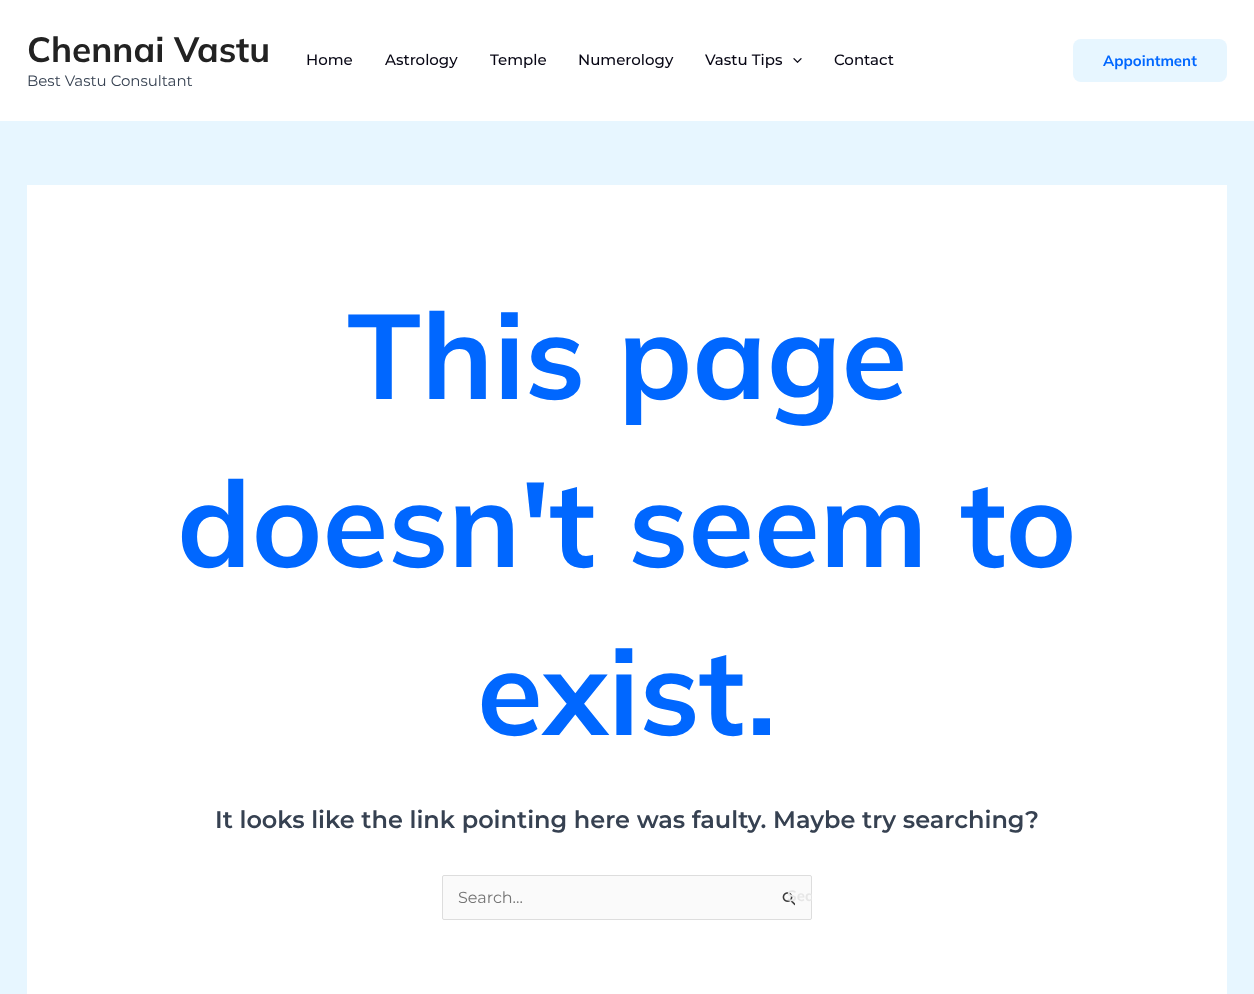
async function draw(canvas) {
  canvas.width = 1254;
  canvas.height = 994;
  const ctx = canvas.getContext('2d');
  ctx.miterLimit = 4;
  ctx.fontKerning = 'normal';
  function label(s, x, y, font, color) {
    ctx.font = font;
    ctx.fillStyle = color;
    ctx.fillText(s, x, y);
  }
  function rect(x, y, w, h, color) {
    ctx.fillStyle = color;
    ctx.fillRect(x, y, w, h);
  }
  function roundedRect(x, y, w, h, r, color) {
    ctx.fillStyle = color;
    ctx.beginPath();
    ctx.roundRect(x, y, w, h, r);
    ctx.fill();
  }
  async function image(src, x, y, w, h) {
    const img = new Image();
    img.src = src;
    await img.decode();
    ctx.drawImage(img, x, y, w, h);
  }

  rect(0, 0, 1254, 994, '#e7f6ff');
  rect(0, 0, 1254, 121, '#fff');
  label('Chennai Vastu', 27, 62, '200 35px Mulish', '#222');
  label('Best Vastu Consultant', 27, 86, '15px Montserrat', '#364151');
  label('Home', 306, 65, '500 15px Montserrat', '#070614');
  label('Astrology', 385, 65, '500 15px Montserrat', '#070614');
  label('Temple', 490, 65, '500 15px Montserrat', '#070614');
  label('Numerology', 578, 65, '500 15px Montserrat', '#070614');
  label('Vastu Tips', 705, 65, '500 15px Montserrat', '#070614');
  await image('assets/img1.png', 793, 58, 9, 5);
  label('Contact', 834, 65, '500 15px Montserrat', '#070614');
  roundedRect(1073, 39, 154, 43, 8, '#e7f6ff');
  label('Appointment', 1103, 66, '200 15px Mulish', '#0067ff');
  rect(27, 185, 1200, 809, '#fff');
  label('This page', 347, 399, '200 120px Mulish', '#0067ff');
  label('doesn\'t seem to', 177, 567, '200 120px Mulish', '#0067ff');
  label('exist.', 477, 735, '200 120px Mulish', '#0067ff');
  label('It looks like the link pointing here was faulty. Maybe try searching?', 215, 828, '600 24px Montserrat', '#364151');
  ctx.fillStyle = '#fafafa';
  ctx.beginPath();
  ctx.roundRect(442.5, 875.5, 369, 44, 1.5);
  ctx.fill();
  ctx.strokeStyle = '#ddd';
  ctx.stroke();
  label('Search...', 458, 903, '16px Montserrat', '#757575');
  await image('assets/img2.png', 782, 892, 13, 14);
  ctx.save();
  ctx.beginPath();
  ctx.roundRect(767, 875, 45, 41, 2);
  ctx.clip();
  label('Sea', 787, 901, '200 15px Mulish', '#e6e6e6');
  ctx.restore();
}

draw(document.querySelector('canvas'));
